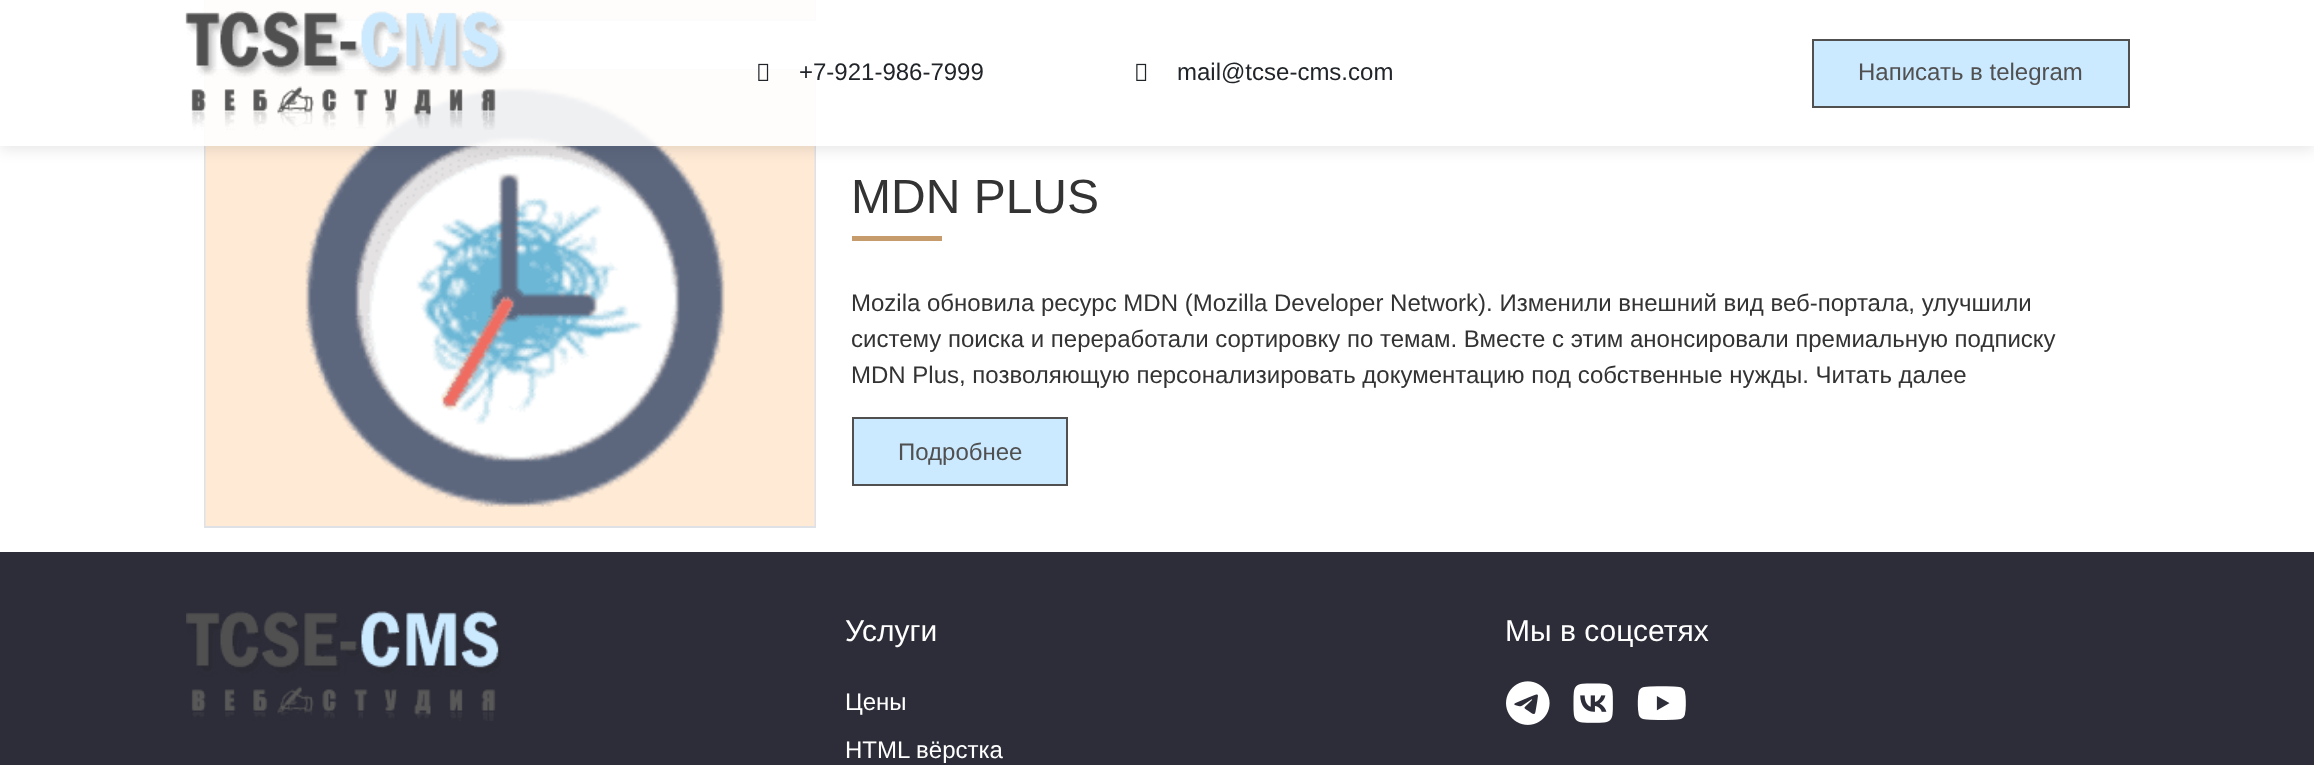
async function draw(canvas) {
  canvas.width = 2314;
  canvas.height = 765;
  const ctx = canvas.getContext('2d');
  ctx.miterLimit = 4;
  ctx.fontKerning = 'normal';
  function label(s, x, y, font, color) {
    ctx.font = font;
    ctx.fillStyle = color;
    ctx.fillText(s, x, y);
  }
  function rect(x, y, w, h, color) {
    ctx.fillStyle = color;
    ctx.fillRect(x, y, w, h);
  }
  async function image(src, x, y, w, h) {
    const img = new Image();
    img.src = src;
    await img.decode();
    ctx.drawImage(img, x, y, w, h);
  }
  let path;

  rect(0, 0, 2314, 765, '#fff');
  ctx.strokeStyle = '#dee2e6';
  ctx.lineWidth = 2;
  ctx.strokeRect(205, -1, 610, 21);
  rect(205, 0, 610, 19, '#feead5');
  ctx.strokeRect(205, 70, 610, 457);
  await image('assets/img4.png', 205, 70, 610, 456);
  ctx.save();
  path = new Path2D('M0 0H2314V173H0ZM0 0H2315V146H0Z');
  ctx.clip(path, 'evenodd');
  ctx.fillStyle = '#0000001a';
  ctx.filter = 'blur(7.5px)';
  ctx.beginPath();
  ctx.rect(0, 3, 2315, 146);
  ctx.fill();
  ctx.filter = 'none';
  ctx.restore();
  rect(0, 0, 2314, 146, '#ffffffe6');
  await image('assets/img1.png', 185, 11, 322, 119);
  await image('assets/img2.png', 758, 63, 11, 18);
  label('+7-921-986-7999', 799, 80, '24px Liberation Sans', '#212529');
  await image('assets/img3.png', 1136, 63, 11, 18);
  label('mail@tcse-cms.com', 1177, 80, '24px Liberation Sans', '#212529');
  ctx.fillStyle = '#cceaff';
  ctx.beginPath();
  ctx.rect(1813, 40, 316, 67);
  ctx.fill();
  ctx.strokeStyle = '#515050';
  ctx.stroke();
  label('Написать в telegram', 1858, 80, '24px Liberation Sans', '#515050');
  label('MDN PLUS', 851, 213, '48px Liberation Sans', '#333');
  rect(852, 236, 90, 5, '#c69c6d');
  label('Mozila обновила ресурс MDN (Mozilla Developer Network). Изменили внешний вид веб-портала, улучшили', 851, 311, '24px Liberation Sans', '#333');
  label('систему поиска и переработали сортировку по темам. Вместе с этим анонсировали премиальную подписку', 851, 347, '24px Liberation Sans', '#333');
  label('MDN Plus, позволяющую персонализировать документацию под собственные нужды. Читать далее', 851, 383, '24px Liberation Sans', '#333');
  ctx.fillStyle = '#cceaff';
  ctx.beginPath();
  ctx.rect(853, 418, 214, 67);
  ctx.fill();
  ctx.stroke();
  label('Подробнее', 898, 460, '24px Liberation Sans', '#515050');
  rect(0, 552, 2314, 213, '#2d2d3a');
  await image('assets/img5.png', 186, 611, 315, 110);
  label('Услуги', 845, 641, '30px Liberation Sans', '#fff');
  label('Цены', 845, 710, '24px Liberation Sans', '#fff');
  label('HTML вёрстка', 845, 758, '24px Liberation Sans', '#fff');
  label('Мы в соцсетях', 1505, 641, '30px Liberation Sans', '#fff');
  await image('assets/img6.png', 1506, 681, 44, 44);
  await image('assets/img7.png', 1573, 683, 40, 40);
  await image('assets/img8.png', 1637, 686, 49, 34);
}

draw(document.querySelector('canvas'));
